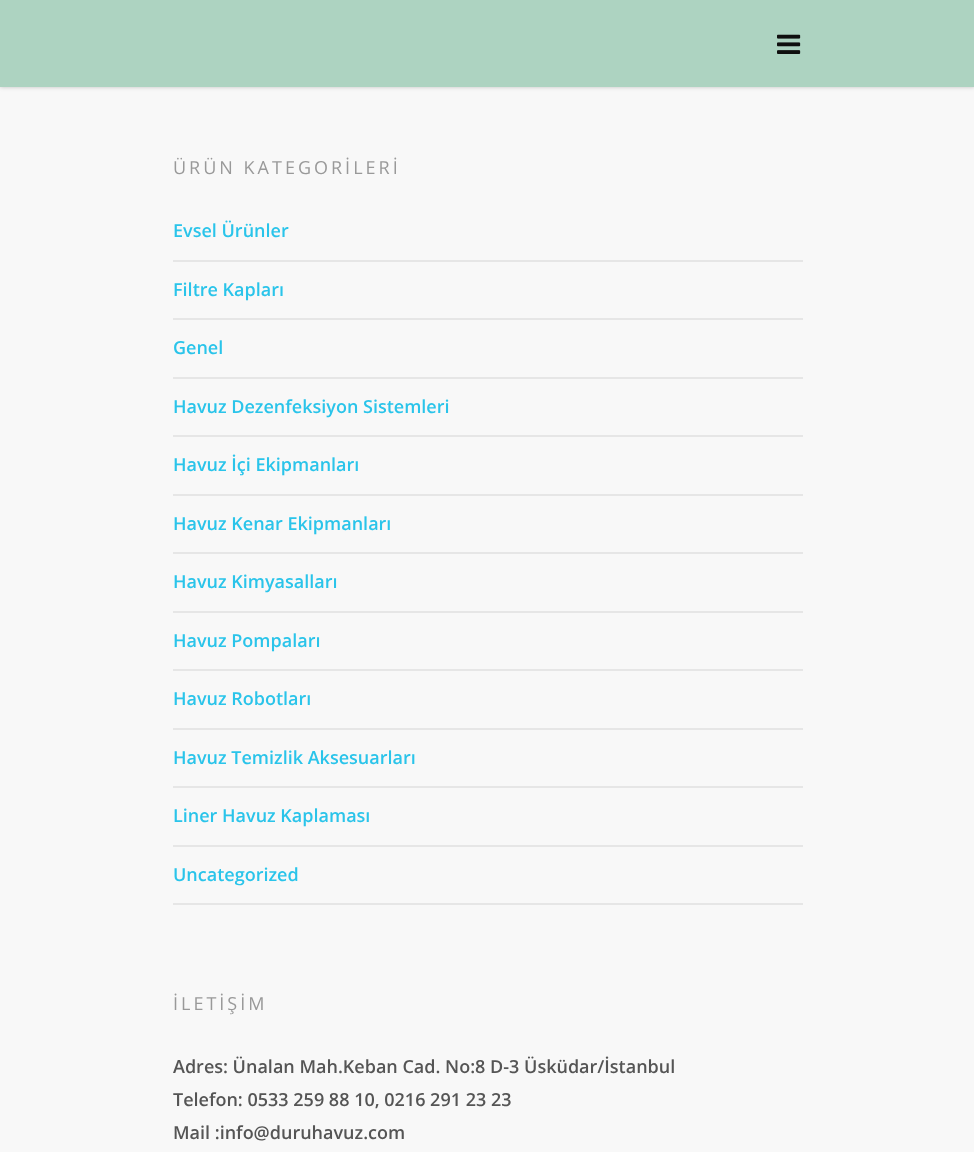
async function draw(canvas) {
  canvas.width = 974;
  canvas.height = 1152;
  const ctx = canvas.getContext('2d');
  ctx.miterLimit = 4;
  ctx.fontKerning = 'normal';
  function label(s, x, y, font, color) {
    ctx.font = font;
    ctx.fillStyle = color;
    ctx.fillText(s, x, y);
  }
  function rect(x, y, w, h, color) {
    ctx.fillStyle = color;
    ctx.fillRect(x, y, w, h);
  }
  async function image(src, x, y, w, h) {
    const img = new Image();
    img.src = src;
    await img.decode();
    ctx.drawImage(img, x, y, w, h);
  }

  rect(0, 0, 974, 1152, '#f8f8f8');
  ctx.fillStyle = '#00000038';
  ctx.filter = 'blur(2px)';
  ctx.beginPath();
  ctx.rect(0, 0, 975, 87);
  ctx.fill();
  ctx.filter = 'none';
  rect(0, 0, 974, 87, '#add3c1');
  await image('assets/img1.png', 777, 34, 24, 20);
  ctx.letterSpacing = '3px';
  label('ÜRÜN KATEGORİLERİ', 173, 174, '18px Open Sans', '#999');
  rect(173, 260, 630, 2, '#e6e6e6');
  ctx.letterSpacing = '0px';
  label('Evsel Ürünler', 173, 237, '600 18px Open Sans', '#2ac4ea');
  rect(173, 318, 630, 2, '#e6e6e6');
  label('Filtre Kapları', 173, 296, '600 18px Open Sans', '#2ac4ea');
  rect(173, 377, 630, 2, '#e6e6e6');
  label('Genel', 173, 354, '600 18px Open Sans', '#2ac4ea');
  rect(173, 435, 630, 2, '#e6e6e6');
  label('Havuz Dezenfeksiyon Sistemleri', 173, 413, '600 18px Open Sans', '#2ac4ea');
  rect(173, 494, 630, 2, '#e6e6e6');
  label('Havuz İçi Ekipmanları', 173, 471, '600 18px Open Sans', '#2ac4ea');
  rect(173, 552, 630, 2, '#e6e6e6');
  label('Havuz Kenar Ekipmanları', 173, 530, '600 18px Open Sans', '#2ac4ea');
  rect(173, 611, 630, 2, '#e6e6e6');
  label('Havuz Kimyasalları', 173, 588, '600 18px Open Sans', '#2ac4ea');
  rect(173, 669, 630, 2, '#e6e6e6');
  label('Havuz Pompaları', 173, 647, '600 18px Open Sans', '#2ac4ea');
  rect(173, 728, 630, 2, '#e6e6e6');
  label('Havuz Robotları', 173, 705, '600 18px Open Sans', '#2ac4ea');
  rect(173, 786, 630, 2, '#e6e6e6');
  label('Havuz Temizlik Aksesuarları', 173, 764, '600 18px Open Sans', '#2ac4ea');
  rect(173, 845, 630, 2, '#e6e6e6');
  label('Liner Havuz Kaplaması', 173, 822, '600 18px Open Sans', '#2ac4ea');
  rect(173, 903, 630, 2, '#e6e6e6');
  label('Uncategorized', 173, 881, '600 18px Open Sans', '#2ac4ea');
  ctx.letterSpacing = '3px';
  label('İLETİŞİM', 173, 1010, '18px Open Sans', '#999');
  ctx.letterSpacing = '0px';
  label('Adres: Ünalan Mah.Keban Cad. No:8 D-3 Üsküdar/İstanbul', 173, 1073, '600 18px Open Sans', '#555');
  label('Telefon: 0533 259 88 10, 0216 291 23 23', 173, 1106, '600 18px Open Sans', '#555');
  label('Mail :info@duruhavuz.com', 173, 1139, '600 18px Open Sans', '#555');
}

draw(document.querySelector('canvas'));
